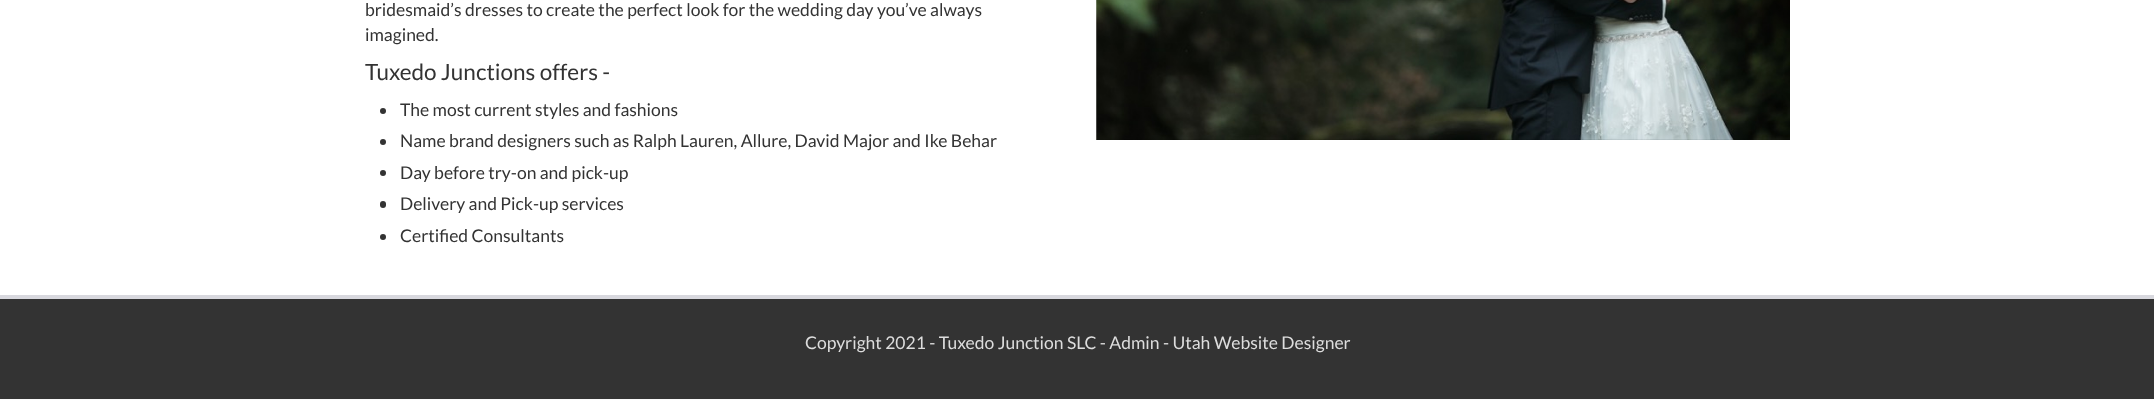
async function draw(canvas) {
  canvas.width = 2154;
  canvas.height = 400;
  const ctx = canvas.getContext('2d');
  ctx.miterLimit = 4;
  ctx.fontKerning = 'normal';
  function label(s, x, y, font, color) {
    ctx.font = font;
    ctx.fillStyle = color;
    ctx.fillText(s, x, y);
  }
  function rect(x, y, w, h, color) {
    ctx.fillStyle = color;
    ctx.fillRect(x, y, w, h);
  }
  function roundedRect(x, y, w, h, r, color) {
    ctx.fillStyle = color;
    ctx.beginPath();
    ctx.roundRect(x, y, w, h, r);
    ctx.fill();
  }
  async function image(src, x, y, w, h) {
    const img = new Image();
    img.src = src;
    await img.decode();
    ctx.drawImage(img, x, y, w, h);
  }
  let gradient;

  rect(0, 0, 2154, 400, '#fff');
  gradient = ctx.createLinearGradient(1078, 399, 1078, 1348);
  gradient.addColorStop(0, '#fafafa');
  gradient.addColorStop(1, '#ededed');
  ctx.fillStyle = gradient;
  ctx.fillRect(0, 399, 2154, 1);
  label('bridesmaid’s dresses to create the perfect look for the wedding day you’ve always', 365, 16, '17.5px Lato', '#333');
  label('imagined.', 365, 41, '17.5px Lato', '#333');
  label('Tuxedo Junctions offers -', 365, 80, '22.5px Lato', '#333');
  ctx.beginPath();
  ctx.arc(383, 111, 3, 0, 2 * Math.PI);
  ctx.fill();
  label('The most current styles and fashions', 400, 116, '17.5px Lato', '#333');
  ctx.beginPath();
  ctx.arc(383, 142, 3, 0, 2 * Math.PI);
  ctx.fill();
  label('Name brand designers such as Ralph Lauren, Allure, David Major and Ike Behar', 400, 147, '17.5px Lato', '#333');
  ctx.beginPath();
  ctx.arc(383, 173, 3, 0, 2 * Math.PI);
  ctx.fill();
  label('Day before try-on and pick-up', 400, 179, '17.5px Lato', '#333');
  roundedRect(380, 201, 6, 7, 3, '#333');
  label('Delivery and Pick-up services', 400, 210, '17.5px Lato', '#333');
  ctx.beginPath();
  ctx.arc(383, 237, 3, 0, 2 * Math.PI);
  ctx.fill();
  label('Certified Consultants', 400, 242, '17.5px Lato', '#333');
  await image('assets/img1.png', 1096, 0, 694, 140);
  rect(0, 299, 2154, 100, '#333');
  rect(0, 295, 2154, 4, '#d8d8de');
  label('Copyright 2021 - Tuxedo Junction SLC - Admin - Utah Website Designer', 805, 349, '17.5px Lato', '#ddd');
}

draw(document.querySelector('canvas'));
